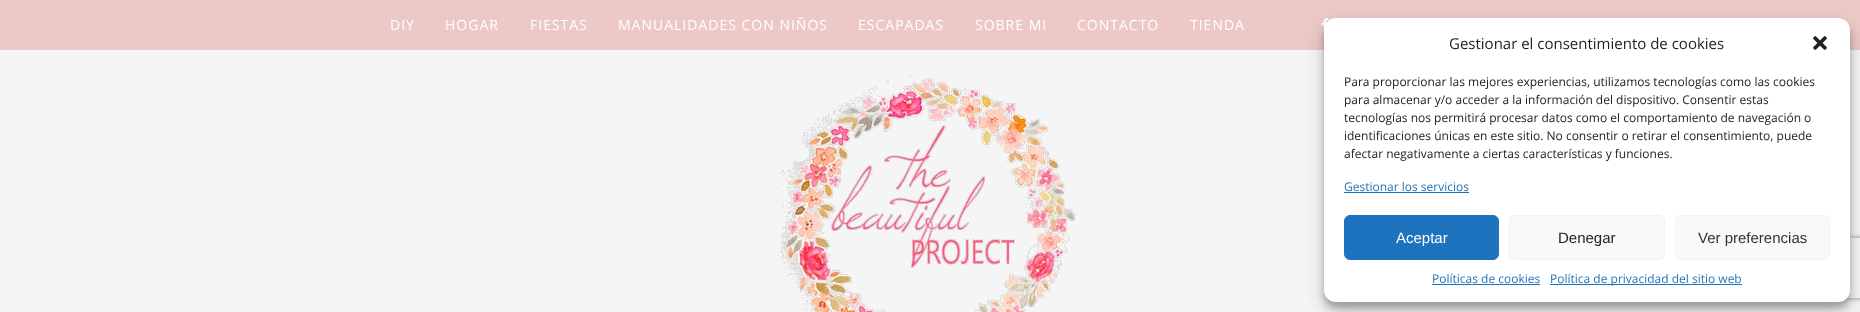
async function draw(canvas) {
  canvas.width = 1860;
  canvas.height = 312;
  const ctx = canvas.getContext('2d');
  ctx.miterLimit = 4;
  ctx.fontKerning = 'normal';
  function label(s, x, y, font, color) {
    ctx.font = font;
    ctx.fillStyle = color;
    ctx.fillText(s, x, y);
  }
  function rect(x, y, w, h, color) {
    ctx.fillStyle = color;
    ctx.fillRect(x, y, w, h);
  }
  function roundedRect(x, y, w, h, r, color) {
    ctx.fillStyle = color;
    ctx.beginPath();
    ctx.roundRect(x, y, w, h, r);
    ctx.fill();
  }
  async function image(src, x, y, w, h) {
    const img = new Image();
    img.src = src;
    await img.decode();
    ctx.drawImage(img, x, y, w, h);
  }
  let path;

  rect(0, 0, 1860, 312, '#f5f5f5');
  rect(0, 0, 1860, 50, '#ecc9c7');
  ctx.letterSpacing = '1px';
  label('DIY', 390, 30, '14px Open Sans', '#fff');
  label('HOGAR', 445, 30, '14px Open Sans', '#fff');
  label('FIESTAS', 530, 30, '14px Open Sans', '#fff');
  label('MANUALIDADES CON NIÑOS', 618, 30, '14px Open Sans', '#fff');
  label('ESCAPADAS', 858, 30, '14px Open Sans', '#fff');
  label('SOBRE MI', 975, 30, '14px Open Sans', '#fff');
  label('CONTACTO', 1077, 30, '14px Open Sans', '#fff');
  label('TIENDA', 1190, 30, '14px Open Sans', '#fff');
  await image('assets/img1.png', 1321, 18, 8, 13);
  await image('assets/img2.png', 775, 76, 301, 236);
  ctx.fillStyle = '#0000003b';
  ctx.filter = 'blur(3px)';
  ctx.beginPath();
  ctx.roundRect(1324, 24, 526, 284, 12);
  ctx.fill();
  ctx.filter = 'none';
  ctx.fillStyle = '#00000030';
  ctx.filter = 'blur(10px)';
  ctx.beginPath();
  ctx.roundRect(1324, 28, 526, 284, 12);
  ctx.fill();
  ctx.filter = 'none';
  ctx.save();
  path = new Path2D('M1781 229H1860V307H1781ZM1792 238H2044C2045 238 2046 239 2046 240V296C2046 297 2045 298 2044 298H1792C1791 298 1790 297 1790 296V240C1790 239 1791 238 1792 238Z');
  ctx.clip(path, 'evenodd');
  ctx.fillStyle = '#808080';
  ctx.filter = 'blur(2.5px)';
  ctx.beginPath();
  ctx.roundRect(1790, 238, 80, 60, 2);
  ctx.fill();
  ctx.filter = 'none';
  ctx.restore();
  roundedRect(1324, 18, 526, 284, 12, '#fff');
  ctx.letterSpacing = '0px';
  label('Gestionar el consentimiento de cookies', 1449, 49, '15px Open Sans', '#222');
  await image('assets/img3.png', 1813, 36, 14, 14);
  label('Para proporcionar las mejores experiencias, utilizamos tecnologías como las cookies', 1344, 86, '12px Open Sans', '#222');
  label('para almacenar y/o acceder a la información del dispositivo. Consentir estas', 1344, 104, '12px Open Sans', '#222');
  label('tecnologías nos permitirá procesar datos como el comportamiento de navegación o', 1344, 122, '12px Open Sans', '#222');
  label('identificaciones únicas en este sitio. No consentir o retirar el consentimiento, puede', 1344, 140, '12px Open Sans', '#222');
  label('afectar negativamente a ciertas características y funciones.', 1344, 158, '12px Open Sans', '#222');
  label('Gestionar los servicios', 1344, 191, '12px Open Sans', '#1e73be');
  rect(1344, 192, 125, 1, '#1e73be');
  ctx.beginPath();
  ctx.roundRect(1344.5, 215.5, 154, 44, 5.5);
  ctx.fill();
  ctx.strokeStyle = '#1e73be';
  ctx.stroke();
  label('Aceptar', 1396, 243, '15px Liberation Sans', '#fff');
  ctx.fillStyle = '#f9f9f9';
  ctx.beginPath();
  ctx.roundRect(1509.5, 215.5, 155, 44, 5.5);
  ctx.fill();
  ctx.strokeStyle = '#f2f2f2';
  ctx.stroke();
  label('Denegar', 1558, 243, '15px Liberation Sans', '#222');
  ctx.fillStyle = '#f9f9f9';
  ctx.beginPath();
  ctx.roundRect(1675.5, 215.5, 154, 44, 5.5);
  ctx.fill();
  ctx.stroke();
  label('Ver preferencias', 1698, 243, '15px Liberation Sans', '#333');
  label('Políticas de cookies', 1432, 283, '12px Open Sans', '#1e73be');
  rect(1432, 284, 108, 1, '#1e73be');
  rect(1550, 284, 192, 1, '#1e73be');
  label('Política de privacidad del sitio web', 1550, 283, '12px Open Sans', '#1e73be');
}

draw(document.querySelector('canvas'));
